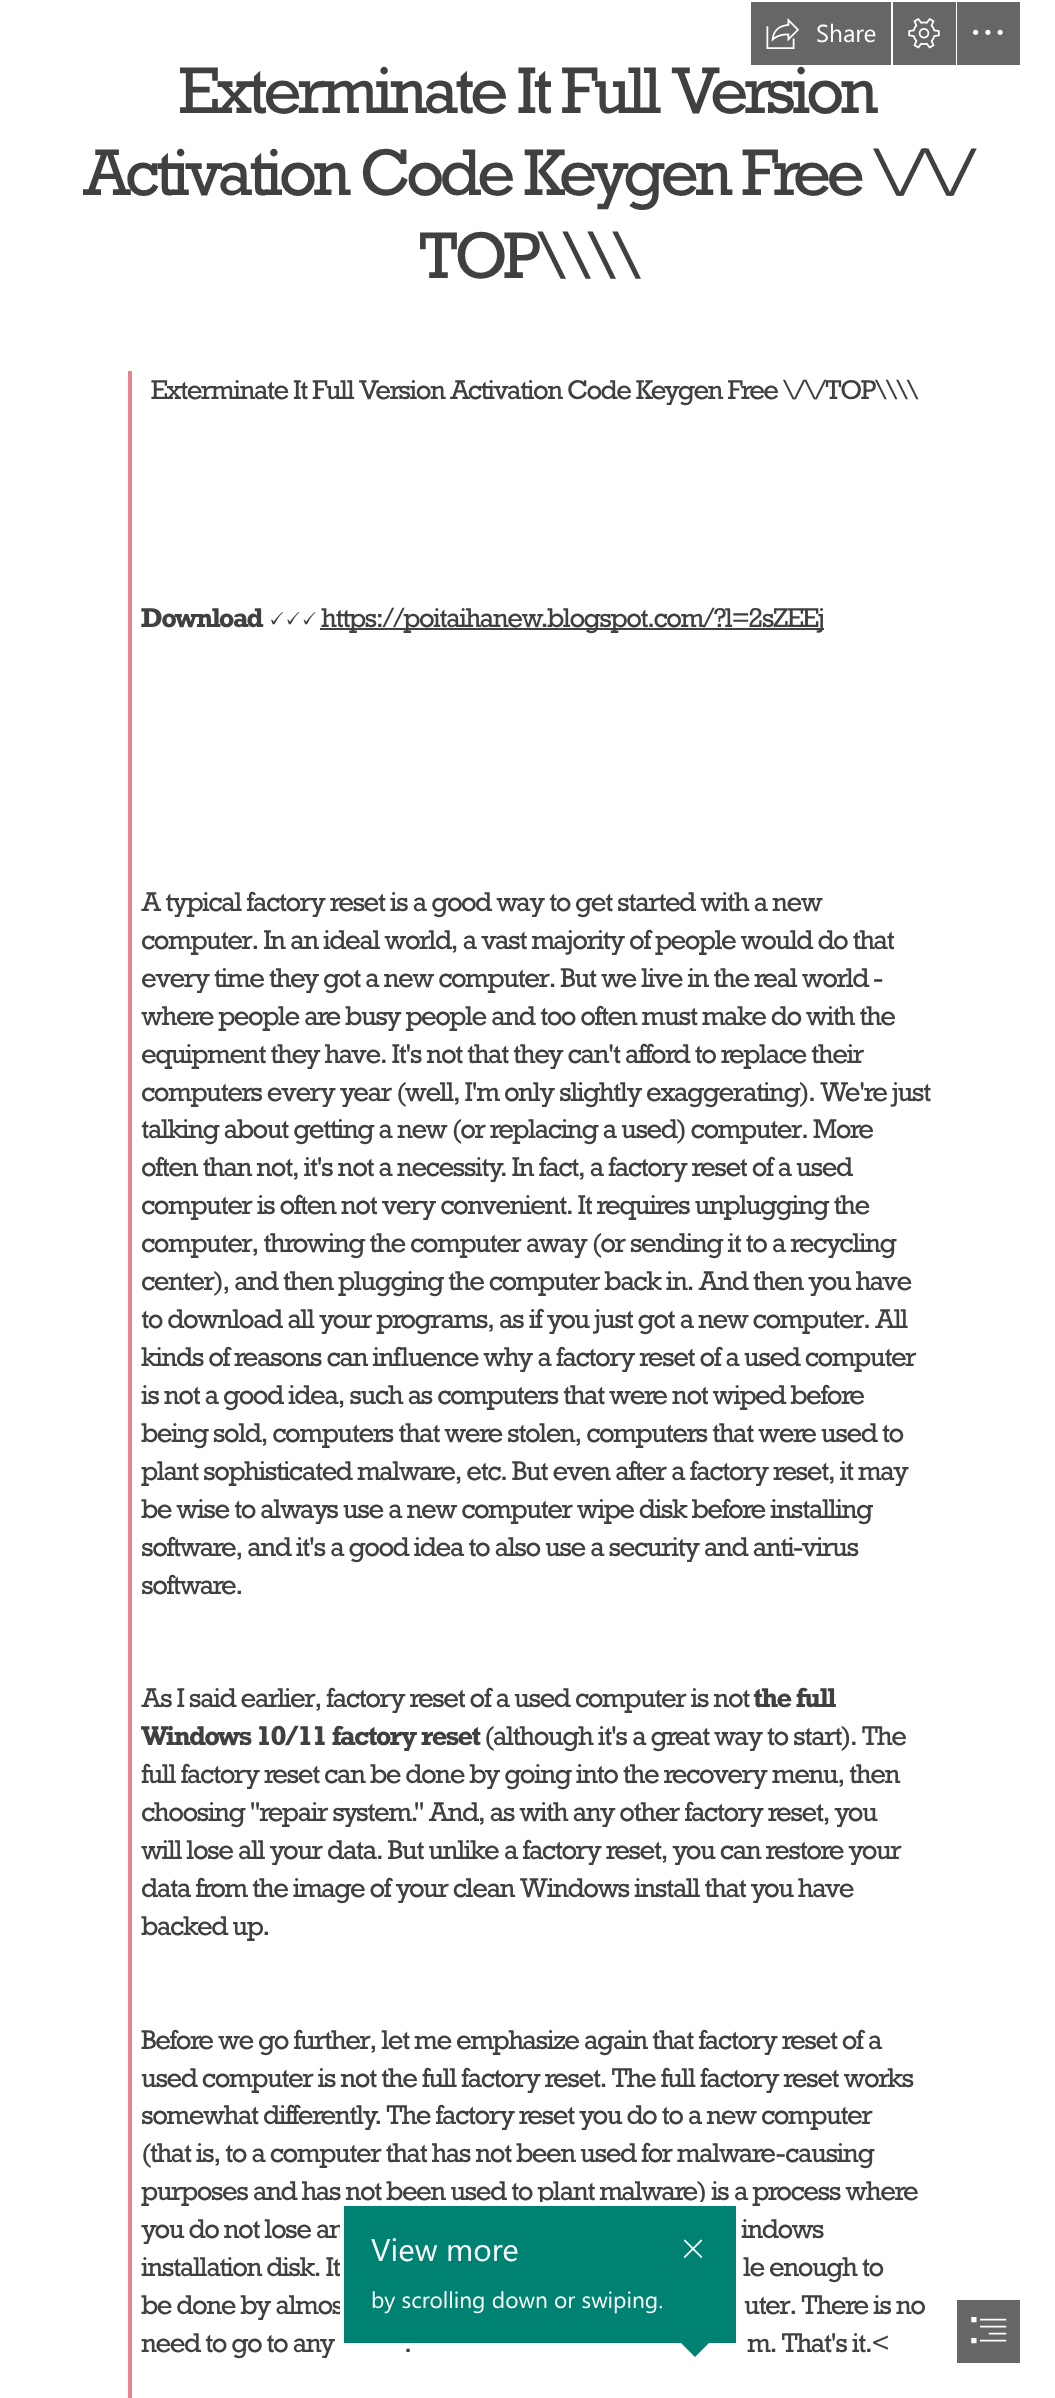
async function draw(canvas) {
  canvas.width = 1055;
  canvas.height = 2398;
  const ctx = canvas.getContext('2d');
  ctx.miterLimit = 4;
  ctx.fontKerning = 'normal';
  function label(s, x, y, font, color) {
    ctx.font = font;
    ctx.fillStyle = color;
    ctx.fillText(s, x, y);
  }
  function rect(x, y, w, h, color) {
    ctx.fillStyle = color;
    ctx.fillRect(x, y, w, h);
  }
  async function image(src, x, y, w, h) {
    const img = new Image();
    img.src = src;
    await img.decode();
    ctx.drawImage(img, x, y, w, h);
  }
  let path;

  rect(0, 0, 1055, 2398, '#fff');
  rect(751, 2, 140, 63, '#666');
  await image('assets/img1.png', 766, 18, 34, 31);
  label('Share', 816, 42, '24.5px Segoe UI', '#fff');
  rect(893, 2, 63, 63, '#666');
  await image('assets/img2.png', 908, 18, 32, 31);
  rect(957, 2, 63, 63, '#666');
  await image('assets/img3.png', 973, 29, 30, 6);
  ctx.letterSpacing = '-4.4px';
  label('Exterminate It Full Version', 179, 113, '61.8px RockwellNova', '#403f41');
  label('Activation Code Keygen Free \\/\\/', 82, 195, '61.8px RockwellNova', '#403f41');
  label('TOP\\\\\\\\', 418, 278, '61.8px RockwellNova', '#403f41');
  rect(128, 371, 4, 2027, '#e78290');
  ctx.letterSpacing = '-1.6px';
  label('Exterminate It Full Version Activation Code Keygen Free \\/\\/TOP\\\\\\\\', 151, 399, '25.55px RockwellNova', '#403f41');
  label('Download', 141, 627, 'bold 25.55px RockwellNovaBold', '#403f41');
  label('🗸🗸🗸', 267, 627, '25.55px FreeSerif', '#403f41');
  rect(320, 628, 504, 2, '#403f41');
  label('https://poitaihanew.blogspot.com/?l=2sZEEj', 321, 627, '25.55px RockwellNova', '#403f41');
  label('A typical factory reset is a good way to get started with a new', 141, 911, '25.55px RockwellNova', '#403f41');
  label('computer. In an ideal world, a vast majority of people would do that', 141, 949, '25.55px RockwellNova', '#403f41');
  label('every time they got a new computer. But we live in the real world -', 141, 987, '25.55px RockwellNova', '#403f41');
  label('where people are busy people and too often must make do with the', 141, 1025, '25.55px RockwellNova', '#403f41');
  label('equipment they have. It\'s not that they can\'t afford to replace their', 141, 1063, '25.55px RockwellNova', '#403f41');
  label('computers every year (well, I\'m only slightly exaggerating). We\'re just', 141, 1101, '25.55px RockwellNova', '#403f41');
  label('talking about getting a new (or replacing a used) computer. More', 141, 1138, '25.55px RockwellNova', '#403f41');
  label('often than not, it\'s not a necessity. In fact, a factory reset of a used', 141, 1176, '25.55px RockwellNova', '#403f41');
  label('computer is often not very convenient. It requires unplugging the', 141, 1214, '25.55px RockwellNova', '#403f41');
  label('computer, throwing the computer away (or sending it to a recycling', 141, 1252, '25.55px RockwellNova', '#403f41');
  label('center), and then plugging the computer back in. And then you have', 141, 1290, '25.55px RockwellNova', '#403f41');
  label('to download all your programs, as if you just got a new computer. All', 141, 1328, '25.55px RockwellNova', '#403f41');
  label('kinds of reasons can influence why a factory reset of a used computer', 141, 1366, '25.55px RockwellNova', '#403f41');
  label('is not a good idea, such as computers that were not wiped before', 141, 1404, '25.55px RockwellNova', '#403f41');
  label('being sold, computers that were stolen, computers that were used to', 141, 1442, '25.55px RockwellNova', '#403f41');
  label('plant sophisticated malware, etc. But even after a factory reset, it may', 141, 1480, '25.55px RockwellNova', '#403f41');
  label('be wise to always use a new computer wipe disk before installing', 141, 1518, '25.55px RockwellNova', '#403f41');
  label('software, and it\'s a good idea to also use a security and anti-virus', 141, 1556, '25.55px RockwellNova', '#403f41');
  label('software.', 141, 1594, '25.55px RockwellNova', '#403f41');
  label('As I said earlier, factory reset of a used computer is not', 141, 1707, '25.55px RockwellNova', '#403f41');
  label('the full', 753, 1707, 'bold 25.55px RockwellNovaBold', '#403f41');
  label('Windows 10/11 factory reset', 141, 1745, 'bold 25.55px RockwellNovaBold', '#403f41');
  label('(although it\'s a great way to start). The', 484, 1745, '25.55px RockwellNova', '#403f41');
  label('full factory reset can be done by going into the recovery menu, then', 141, 1783, '25.55px RockwellNova', '#403f41');
  label('choosing "repair system." And, as with any other factory reset, you', 141, 1821, '25.55px RockwellNova', '#403f41');
  label('will lose all your data. But unlike a factory reset, you can restore your', 141, 1859, '25.55px RockwellNova', '#403f41');
  label('data from the image of your clean Windows install that you have', 141, 1897, '25.55px RockwellNova', '#403f41');
  label('backed up.', 141, 1935, '25.55px RockwellNova', '#403f41');
  label('Before we go further, let me emphasize again that factory reset of a', 141, 2049, '25.55px RockwellNova', '#403f41');
  label('used computer is not the full factory reset. The full factory reset works', 141, 2087, '25.55px RockwellNova', '#403f41');
  label('somewhat differently. The factory reset you do to a new computer', 141, 2124, '25.55px RockwellNova', '#403f41');
  label('(that is, to a computer that has not been used for malware-causing', 141, 2162, '25.55px RockwellNova', '#403f41');
  label('purposes and has not been used to plant malware) is a process where', 141, 2200, '25.55px RockwellNova', '#403f41');
  label('you do not lose an', 141, 2238, '25.55px RockwellNova', '#403f41');
  label('indows', 741, 2238, '25.55px RockwellNova', '#403f41');
  label('installation disk. It', 141, 2276, '25.55px RockwellNova', '#403f41');
  label('le enough to', 743, 2276, '25.55px RockwellNova', '#403f41');
  label('be done by almos', 141, 2314, '25.55px RockwellNova', '#403f41');
  label('uter. There is no', 744, 2314, '25.55px RockwellNova', '#403f41');
  label('need to go to any', 141, 2352, '25.55px RockwellNova', '#403f41');
  label('.', 404, 2352, '25.55px RockwellNova', '#403f41');
  label('m. That\'s it.<', 747, 2352, '25.55px RockwellNova', '#403f41');
  ctx.fillStyle = '#008272';
  ctx.beginPath();
  ctx.rect(342, 2204, 396, 141);
  ctx.fill();
  ctx.strokeStyle = '#fff';
  ctx.lineWidth = 4;
  ctx.stroke();
  ctx.letterSpacing = '0px';
  label('View more', 371, 2261, '31.5px Segoe UI', '#fff');
  label('by scrolling down or swiping.', 371, 2308, '22.75px Segoe UI', '#fff');
  await image('assets/img4.png', 683, 2239, 20, 19);
  ctx.fillStyle = '#008272';
  path = new Path2D('M681 2343H709L695 2357Z');
  ctx.fill(path);
  rect(957, 2300, 63, 63, '#666');
  await image('assets/img5.png', 971, 2317, 36, 27);
}

draw(document.querySelector('canvas'));
